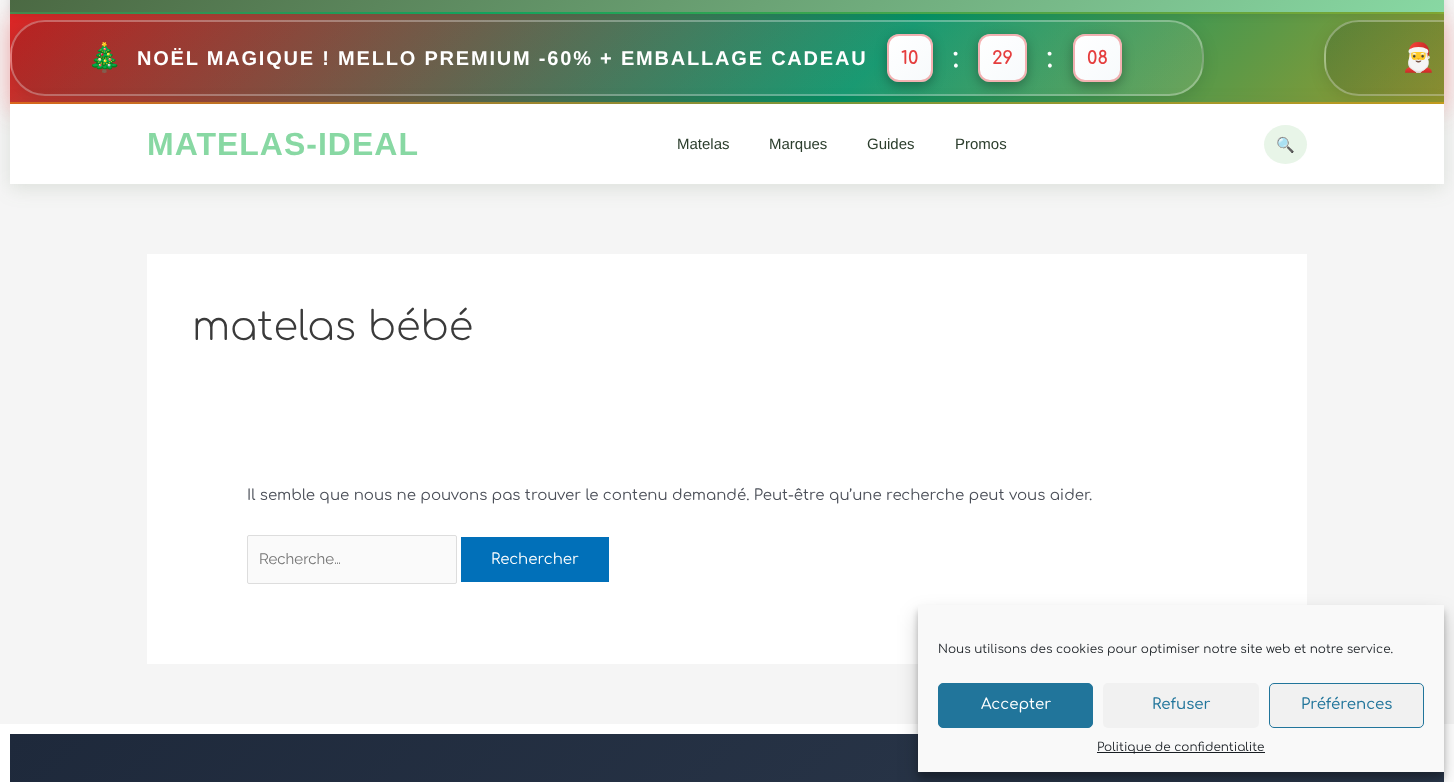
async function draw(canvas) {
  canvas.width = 1454;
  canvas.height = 782;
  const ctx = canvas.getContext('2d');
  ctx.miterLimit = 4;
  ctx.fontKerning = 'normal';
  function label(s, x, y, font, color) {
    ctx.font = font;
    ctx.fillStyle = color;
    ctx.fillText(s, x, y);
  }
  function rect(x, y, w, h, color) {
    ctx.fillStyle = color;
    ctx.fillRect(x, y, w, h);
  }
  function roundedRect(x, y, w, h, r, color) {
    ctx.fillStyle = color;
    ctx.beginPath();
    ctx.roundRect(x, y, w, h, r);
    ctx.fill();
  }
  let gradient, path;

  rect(0, 0, 1454, 782, '#f5f5f5');
  ctx.fillStyle = '#dc262666';
  ctx.filter = 'blur(12.5px)';
  ctx.beginPath();
  ctx.rect(10, 18, 1434, 92);
  ctx.fill();
  ctx.filter = 'none';
  gradient = ctx.createLinearGradient(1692, -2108, 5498, 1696);
  gradient.addColorStop(0, '#7f7642');
  gradient.addColorStop(0.12, '#14ae64');
  gradient.addColorStop(0.25, '#8cb235');
  gradient.addColorStop(0.37, '#7f7642');
  gradient.addColorStop(0.5, '#19bf70');
  gradient.addColorStop(0.62, '#8cb235');
  gradient.addColorStop(0.75, '#7f7642');
  gradient.addColorStop(0.87, '#14ae64');
  gradient.addColorStop(1, '#8cb235');
  ctx.fillStyle = gradient;
  ctx.fillRect(10, 12, 1434, 2);
  gradient = ctx.createLinearGradient(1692, -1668, 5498, 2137);
  gradient.addColorStop(0, '#dc2626');
  gradient.addColorStop(0.12, '#059669');
  gradient.addColorStop(0.25, '#f59e0b');
  gradient.addColorStop(0.37, '#dc2626');
  gradient.addColorStop(0.5, '#10b981');
  gradient.addColorStop(0.62, '#f59e0b');
  gradient.addColorStop(0.75, '#dc2626');
  gradient.addColorStop(0.87, '#059669');
  gradient.addColorStop(1, '#f59e0b');
  ctx.fillStyle = gradient;
  ctx.fillRect(10, 14, 1434, 88);
  gradient = ctx.createLinearGradient(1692, -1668, 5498, 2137);
  gradient.addColorStop(0, '#e96219');
  gradient.addColorStop(0.12, '#7d9a3a');
  gradient.addColorStop(0.25, '#f59e0b');
  gradient.addColorStop(0.37, '#e96219');
  gradient.addColorStop(0.5, '#83ac46');
  gradient.addColorStop(0.62, '#f59e0b');
  gradient.addColorStop(0.75, '#e96219');
  gradient.addColorStop(0.87, '#7d9a3a');
  gradient.addColorStop(1, '#f59e0b');
  ctx.fillStyle = gradient;
  ctx.fillRect(10, 102, 1434, 2);
  ctx.save();
  ctx.beginPath();
  ctx.rect(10, 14, 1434, 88);
  ctx.clip();
  path = new Path2D('M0 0H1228V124H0ZM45 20H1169C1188.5 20 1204 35.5 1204 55V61C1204 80.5 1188.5 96 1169 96H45C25.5 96 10 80.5 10 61V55C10 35.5 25.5 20 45 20Z');
  ctx.clip(path, 'evenodd');
  ctx.fillStyle = '#0000001a';
  ctx.filter = 'blur(7.5px)';
  ctx.beginPath();
  ctx.roundRect(10, 24, 1194, 76, 35);
  ctx.fill();
  ctx.filter = 'none';
  ctx.restore();
  ctx.save();
  ctx.beginPath();
  ctx.roundRect(10, 20, 1194, 76, 35);
  ctx.clip();
  gradient = ctx.createLinearGradient(291, -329, 923, 302);
  gradient.addColorStop(0, '#00000026');
  gradient.addColorStop(1, '#ffffff1a');
  ctx.fillStyle = gradient;
  ctx.fillRect(34, 20, 1146, 2);
  gradient = ctx.createLinearGradient(291, -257, 923, 374);
  gradient.addColorStop(0, '#00000026');
  gradient.addColorStop(1, '#ffffff1a');
  ctx.fillStyle = gradient;
  ctx.fillRect(12, 22, 1190, 72);
  gradient = ctx.createLinearGradient(-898, -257, -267, 374);
  gradient.addColorStop(0, '#00000026');
  gradient.addColorStop(1, '#ffffff1a');
  ctx.fillStyle = gradient;
  ctx.fillRect(10, 44, 2, 28);
  gradient = ctx.createLinearGradient(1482, -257, 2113, 374);
  gradient.addColorStop(0, '#00000026');
  gradient.addColorStop(1, '#ffffff1a');
  ctx.fillStyle = gradient;
  ctx.fillRect(1202, 44, 2, 28);
  gradient = ctx.createLinearGradient(291, -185, 923, 446);
  gradient.addColorStop(0, '#00000026');
  gradient.addColorStop(1, '#ffffff1a');
  ctx.fillStyle = gradient;
  ctx.fillRect(34, 94, 1146, 2);
  ctx.restore();
  ctx.beginPath();
  ctx.roundRect(11, 21, 1192, 74, 34);
  ctx.strokeStyle = '#ffffff4d';
  ctx.lineWidth = 2;
  ctx.stroke();
  ctx.save();
  ctx.beginPath();
  ctx.rect(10, 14, 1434, 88);
  ctx.clip();
  path = new Path2D('M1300 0H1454V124H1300ZM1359 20H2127C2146.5 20 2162 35.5 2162 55V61C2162 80.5 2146.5 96 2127 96H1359C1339.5 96 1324 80.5 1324 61V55C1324 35.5 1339.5 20 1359 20Z');
  ctx.clip(path, 'evenodd');
  ctx.fillStyle = '#0000001a';
  ctx.filter = 'blur(7.5px)';
  ctx.beginPath();
  ctx.roundRect(1324, 24, 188, 76, 35);
  ctx.fill();
  ctx.filter = 'none';
  ctx.restore();
  ctx.save();
  ctx.beginPath();
  ctx.roundRect(1324, 20, 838, 76, 35);
  ctx.clip();
  gradient = ctx.createLinearGradient(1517, -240, 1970, 212);
  gradient.addColorStop(0, '#00000026');
  gradient.addColorStop(1, '#ffffff1a');
  ctx.fillStyle = gradient;
  ctx.fillRect(1348, 20, 96, 2);
  gradient = ctx.createLinearGradient(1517, -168, 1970, 285);
  gradient.addColorStop(0, '#00000026');
  gradient.addColorStop(1, '#ffffff1a');
  ctx.fillStyle = gradient;
  ctx.fillRect(1326, 22, 118, 72);
  gradient = ctx.createLinearGradient(683, -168, 1136, 285);
  gradient.addColorStop(0, '#00000026');
  gradient.addColorStop(1, '#ffffff1a');
  ctx.fillStyle = gradient;
  ctx.fillRect(1324, 44, 2, 28);
  gradient = ctx.createLinearGradient(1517, -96, 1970, 357);
  gradient.addColorStop(0, '#00000026');
  gradient.addColorStop(1, '#ffffff1a');
  ctx.fillStyle = gradient;
  ctx.fillRect(1348, 94, 96, 2);
  ctx.restore();
  ctx.save();
  ctx.beginPath();
  ctx.rect(10, 14, 1434, 88);
  ctx.clip();
  ctx.beginPath();
  ctx.roundRect(1325, 21, 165, 74, 34);
  ctx.stroke();
  ctx.restore();
  ctx.fillStyle = '#0000001a';
  ctx.filter = 'blur(5px)';
  ctx.beginPath();
  ctx.rect(10, -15, 1434, 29);
  ctx.fill();
  ctx.filter = 'none';
  gradient = ctx.createLinearGradient(358, -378, 1096, 360);
  gradient.addColorStop(0, '#4a6741');
  gradient.addColorStop(1, '#88d8a3');
  ctx.fillStyle = gradient;
  ctx.fillRect(10, 0, 1434, 12);
  label('🎄', 87, 67, '28px Noto Color Emoji', '#4b4f58');
  ctx.letterSpacing = '1.8px';
  label('NOËL MAGIQUE ! MELLO PREMIUM -60% + EMBALLAGE CADEAU', 137, 65, 'bold 20px Liberation Sans', '#fff');
  ctx.fillStyle = '#0000004d';
  ctx.filter = 'blur(6px)';
  ctx.beginPath();
  ctx.roundRect(887, 38, 46, 48, 12);
  ctx.fill();
  ctx.filter = 'none';
  ctx.save();
  ctx.beginPath();
  ctx.roundRect(887, 34, 46, 48, 12);
  ctx.clip();
  gradient = ctx.createLinearGradient(889, -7.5, 932, 36);
  gradient.addColorStop(0, '#fff');
  gradient.addColorStop(1, '#f7fafc');
  ctx.fillStyle = gradient;
  ctx.fillRect(889, 34, 42, 2);
  gradient = ctx.createLinearGradient(847, 37, 890, 80);
  gradient.addColorStop(0, '#fff');
  gradient.addColorStop(1, '#f7fafc');
  ctx.fillStyle = gradient;
  ctx.fillRect(887, 36, 2, 44);
  gradient = ctx.createLinearGradient(889, 37, 932, 80);
  gradient.addColorStop(0, '#fff');
  gradient.addColorStop(1, '#f7fafc');
  ctx.fillStyle = gradient;
  ctx.fillRect(889, 36, 42, 44);
  gradient = ctx.createLinearGradient(931, 37, 974, 80);
  gradient.addColorStop(0, '#fff');
  gradient.addColorStop(1, '#f7fafc');
  ctx.fillStyle = gradient;
  ctx.fillRect(931, 36, 2, 44);
  gradient = ctx.createLinearGradient(889, 81, 932, 124);
  gradient.addColorStop(0, '#fff');
  gradient.addColorStop(1, '#f7fafc');
  ctx.fillStyle = gradient;
  ctx.fillRect(889, 80, 42, 2);
  ctx.restore();
  ctx.beginPath();
  ctx.roundRect(888, 35, 44, 46, 11);
  ctx.strokeStyle = '#e53e3e66';
  ctx.stroke();
  ctx.letterSpacing = '0px';
  label('10', 901, 64, 'bold 18px Comfortaa', '#e53e3e');
  label(':', 953, 67, 'bold 28px Comfortaa', '#fff');
  ctx.fillStyle = '#0000004d';
  ctx.filter = 'blur(6px)';
  ctx.beginPath();
  ctx.roundRect(978, 38, 49, 48, 12);
  ctx.fill();
  ctx.filter = 'none';
  ctx.save();
  ctx.beginPath();
  ctx.roundRect(978, 34, 49, 48, 12);
  ctx.clip();
  gradient = ctx.createLinearGradient(980, -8, 1025, 36);
  gradient.addColorStop(0, '#fff');
  gradient.addColorStop(1, '#f7fafc');
  ctx.fillStyle = gradient;
  ctx.fillRect(980, 34, 45, 2);
  gradient = ctx.createLinearGradient(935, 36, 980, 80);
  gradient.addColorStop(0, '#fff');
  gradient.addColorStop(1, '#f7fafc');
  ctx.fillStyle = gradient;
  ctx.fillRect(978, 36, 2, 44);
  gradient = ctx.createLinearGradient(980, 36, 1025, 80);
  gradient.addColorStop(0, '#fff');
  gradient.addColorStop(1, '#f7fafc');
  ctx.fillStyle = gradient;
  ctx.fillRect(980, 36, 45, 44);
  gradient = ctx.createLinearGradient(1025, 36, 1070, 80);
  gradient.addColorStop(0, '#fff');
  gradient.addColorStop(1, '#f7fafc');
  ctx.fillStyle = gradient;
  ctx.fillRect(1025, 36, 2, 44);
  gradient = ctx.createLinearGradient(980, 80, 1025, 124);
  gradient.addColorStop(0, '#fff');
  gradient.addColorStop(1, '#f7fafc');
  ctx.fillStyle = gradient;
  ctx.fillRect(980, 80, 45, 2);
  ctx.restore();
  ctx.beginPath();
  ctx.roundRect(979, 35, 47, 46, 11);
  ctx.stroke();
  label('29', 992, 64, 'bold 18px Comfortaa', '#e53e3e');
  label(':', 1047, 67, 'bold 28px Comfortaa', '#fff');
  ctx.fillStyle = '#0000004d';
  ctx.filter = 'blur(6px)';
  ctx.beginPath();
  ctx.roundRect(1073, 38, 49, 48, 12);
  ctx.fill();
  ctx.filter = 'none';
  ctx.save();
  ctx.beginPath();
  ctx.roundRect(1073, 34, 49, 48, 12);
  ctx.clip();
  gradient = ctx.createLinearGradient(1075, -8, 1120, 36);
  gradient.addColorStop(0, '#fff');
  gradient.addColorStop(1, '#f7fafc');
  ctx.fillStyle = gradient;
  ctx.fillRect(1075, 34, 45, 2);
  gradient = ctx.createLinearGradient(1030, 36, 1075, 80);
  gradient.addColorStop(0, '#fff');
  gradient.addColorStop(1, '#f7fafc');
  ctx.fillStyle = gradient;
  ctx.fillRect(1073, 36, 2, 44);
  gradient = ctx.createLinearGradient(1075, 36, 1120, 80);
  gradient.addColorStop(0, '#fff');
  gradient.addColorStop(1, '#f7fafc');
  ctx.fillStyle = gradient;
  ctx.fillRect(1075, 36, 45, 44);
  gradient = ctx.createLinearGradient(1120, 36, 1165, 80);
  gradient.addColorStop(0, '#fff');
  gradient.addColorStop(1, '#f7fafc');
  ctx.fillStyle = gradient;
  ctx.fillRect(1120, 36, 2, 44);
  gradient = ctx.createLinearGradient(1075, 80, 1120, 124);
  gradient.addColorStop(0, '#fff');
  gradient.addColorStop(1, '#f7fafc');
  ctx.fillStyle = gradient;
  ctx.fillRect(1075, 80, 45, 2);
  ctx.restore();
  ctx.beginPath();
  ctx.roundRect(1074, 35, 47, 46, 11);
  ctx.stroke();
  label('08', 1087, 64, 'bold 18px Comfortaa', '#e53e3e');
  label('🎅', 1401, 67, '28px Noto Color Emoji', '#4b4f58');
  ctx.fillStyle = '#48674126';
  ctx.filter = 'blur(10px)';
  ctx.beginPath();
  ctx.rect(10, 108, 1434, 80);
  ctx.fill();
  ctx.filter = 'none';
  rect(10, 104, 1434, 80, '#fff');
  ctx.letterSpacing = '1px';
  label('MATELAS-IDEAL', 147, 155, 'bold 32px Liberation Sans', '#88d8a3');
  ctx.letterSpacing = '0px';
  label('Matelas', 677, 149, '15px Liberation Sans', '#2c3e2d');
  label('Marques', 769, 149, '15px Liberation Sans', '#2c3e2d');
  label('Guides', 867, 149, '15px Liberation Sans', '#2c3e2d');
  label('Promos', 955, 149, '15px Liberation Sans', '#2c3e2d');
  ctx.fillStyle = '#e8f5e8';
  ctx.beginPath();
  ctx.ellipse(1285.5, 144.5, 21.5, 19.5, 0, 0, 2 * Math.PI);
  ctx.fill();
  label('🔍', 1276, 150, '15px Noto Color Emoji', '#4a6741');
  rect(147, 254, 1160, 410, '#fff');
  label('matelas bébé', 192, 340, '300 40px Comfortaa', '#3a3a3a');
  label('Il semble que nous ne pouvons pas trouver le contenu demandé. Peut-être qu’une recherche peut vous aider.', 247, 500, '15px Comfortaa', '#4b4f58');
  ctx.fillStyle = '#fafafa';
  ctx.beginPath();
  ctx.roundRect(247.5, 535.5, 209, 48, 1.5);
  ctx.fill();
  ctx.strokeStyle = '#ddd';
  ctx.lineWidth = 1;
  ctx.stroke();
  label('Recherche…', 259, 564, '15px Raleway', '#757575');
  rect(461, 537, 148, 45, '#0170b9');
  label('Rechercher', 491, 564, '15px Comfortaa', '#fff');
  rect(0, 724, 1454, 58, '#fff');
  gradient = ctx.createLinearGradient(164, 580, 1290, 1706);
  gradient.addColorStop(0, '#1e293b');
  gradient.addColorStop(1, '#334155');
  ctx.fillStyle = gradient;
  ctx.fillRect(10, 734, 1434, 48);
  ctx.fillStyle = '#0000003b';
  ctx.filter = 'blur(3px)';
  ctx.beginPath();
  ctx.rect(918, 611, 526, 167);
  ctx.fill();
  ctx.filter = 'none';
  ctx.fillStyle = '#00000030';
  ctx.filter = 'blur(10px)';
  ctx.beginPath();
  ctx.rect(918, 615, 526, 167);
  ctx.fill();
  ctx.filter = 'none';
  rect(918, 605, 526, 167, '#f9f9f9');
  label('Nous utilisons des cookies pour optimiser notre site web et notre service.', 938, 653, '12px Comfortaa', '#191e23');
  ctx.fillStyle = '#21759b';
  ctx.beginPath();
  ctx.roundRect(938.5, 683.5, 154, 44, 4.5);
  ctx.fill();
  ctx.strokeStyle = '#21759b';
  ctx.stroke();
  label('Accepter', 981, 709, '500 15px Comfortaa', '#fff');
  roundedRect(1103, 683, 156, 45, 5, '#f1f1f1');
  label('Refuser', 1152, 709, '500 15px Comfortaa', '#21759b');
  ctx.fillStyle = '#f1f1f1';
  ctx.beginPath();
  ctx.roundRect(1269.5, 683.5, 154, 44, 4.5);
  ctx.fill();
  ctx.stroke();
  label('Préférences', 1301, 709, '500 15px Comfortaa', '#21759b');
  rect(1097, 752, 168, 1, '#191e23');
  label('Politique de confidentialite', 1097, 751, '12px Comfortaa', '#191e23');
}

draw(document.querySelector('canvas'));
